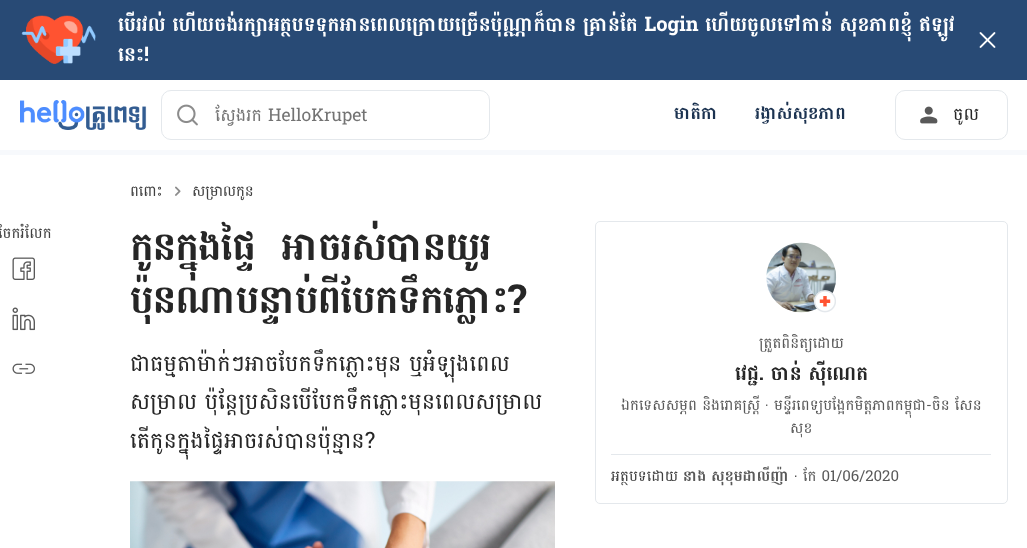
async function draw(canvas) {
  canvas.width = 1027;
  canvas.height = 548;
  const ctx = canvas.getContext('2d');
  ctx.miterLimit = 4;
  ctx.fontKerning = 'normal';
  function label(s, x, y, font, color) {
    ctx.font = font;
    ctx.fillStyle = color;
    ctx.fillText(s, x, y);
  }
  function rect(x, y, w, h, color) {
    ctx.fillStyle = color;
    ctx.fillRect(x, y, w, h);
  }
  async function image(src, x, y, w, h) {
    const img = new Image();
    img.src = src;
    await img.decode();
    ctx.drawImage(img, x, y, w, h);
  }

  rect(0, 0, 1027, 548, '#fff');
  rect(0, 0, 1027, 80, '#284a75');
  await image('assets/img1.png', 21, 15, 75, 49);
  ctx.save();
  ctx.beginPath();
  ctx.rect(118, 10, 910, 60);
  ctx.clip();
  label('បើរវល់ ហើយចង់រក្សាអត្ថបទទុកអានពេលក្រោយច្រើនប៉ុណ្ណាក៏បាន គ្រាន់តែ Login ហើយចូលទៅកាន់ សុខភាពខ្ញុំ ឥឡូវ', 118, 31, 'bold 20px Battambang', '#fff');
  ctx.restore();
  label('នេះ!', 118, 61, 'bold 20px Battambang', '#fff');
  await image('assets/img2.png', 979, 32, 17, 16);
  await image('assets/img3.png', 20, 100, 127, 30);
  ctx.beginPath();
  ctx.roundRect(161.5, 90.5, 328, 49, 9.5);
  ctx.strokeStyle = '#e4e8ec';
  ctx.stroke();
  await image('assets/img4.png', 177, 104, 21, 22);
  ctx.save();
  ctx.beginPath();
  ctx.rect(215, 100, 251, 31);
  ctx.clip();
  label('ស្វែងរក HelloKrupet', 215, 121, '17.5px Battambang', '#737373');
  ctx.restore();
  label('មាតិកា', 674, 119, 'bold 17.5px Battambang', '#1b3250');
  label('រង្វាស់សុខភាព', 755, 119, 'bold 17.5px Battambang', '#1b3250');
  ctx.beginPath();
  ctx.roundRect(895.5, 90.5, 112, 49, 9.5);
  ctx.stroke();
  await image('assets/img5.png', 920, 106, 18, 18);
  ctx.save();
  ctx.beginPath();
  ctx.rect(953, 91, 26, 48);
  ctx.clip();
  label('ចូល', 953, 120, '17.5px Battambang', '#262626');
  ctx.restore();
  rect(0, 150, 1027, 5, '#f7f9fc');
  ctx.letterSpacing = '-0.25px';
  label('ពពោះ', 130, 196, '15px Battambang', '#404040');
  await image('assets/img6.png', 175, 186, 6, 10);
  label('សម្រាលកូន', 192, 196, '15px Battambang', '#404040');
  ctx.letterSpacing = '0px';
  label('ចែករំលែក', -2, 238, '15px Battambang', '#404040');
  await image('assets/img7.png', 12, 257, 23, 23);
  await image('assets/img8.png', 12, 307, 23, 24);
  await image('assets/img9.png', 12, 363, 23, 11);
  ctx.letterSpacing = '-1.25px';
  ctx.wordSpacing = '14px';
  label('កូនក្នុងផ្ទៃ អាចរស់បានយូរ', 130, 260, 'bold 40px Battambang', '#262626');
  ctx.wordSpacing = '0px';
  label('ប៉ុនណាបន្ទាប់ពីបែកទឹកភ្លោះ?', 130, 313, 'bold 40px Battambang', '#262626');
  ctx.letterSpacing = '0px';
  label('ជាធម្មតាម៉ាក់ៗអាចបែកទឹកភ្លោះមុន ឬអំឡុងពេល', 130, 371, '22.5px Battambang', '#262626');
  label('សម្រាល ប៉ុន្តែប្រសិនបើបែកទឹកភ្លោះមុនពេលសម្រាល', 130, 409, '22.5px Battambang', '#262626');
  label('តើកូនក្នុងផ្ទៃអាចរស់បានប៉ុន្មាន?', 130, 448, '22.5px Battambang', '#262626');
  await image('assets/img10.png', 130, 481, 425, 67);
  ctx.beginPath();
  ctx.roundRect(595.5, 221.5, 412, 282, 4.5);
  ctx.stroke();
  await image('assets/img11.png', 766, 242, 71, 71);
  await image('assets/img12.png', 814, 290, 22, 23);
  label('ត្រួតពិនិត្យដោយ', 759, 348, '15px Battambang', '#595959');
  label('វេជ្ជ. ចាន់ ស៊ីណេត', 735, 380, 'bold 20px Battambang', '#262626');
  label('ឯកទេសសម្ភព និងរោគស្ត្រី', 621, 410, '15px Battambang', '#595959');
  label('·', 765, 410, '15px Oxygen', '#595959');
  label('មន្ទីរពេទ្យបង្អែកមិត្តភាពកម្ពុជា-ចិន សែន', 774, 410, '15px Battambang', '#595959');
  label('សុខ', 790, 433, '15px Battambang', '#595959');
  rect(611, 454, 380, 1, '#e4e8ec');
  label('អត្ថបទដោយ', 611, 481, '15px Battambang', '#404040');
  label('នាង សុខុមដាលីញ៉ា', 683, 481, 'bold 15px Battambang', '#595959');
  label('·', 794, 481, '15px Oxygen', '#404040');
  label('កែ 01/06/2020', 803, 481, '15px Battambang', '#595959');
}

draw(document.querySelector('canvas'));
